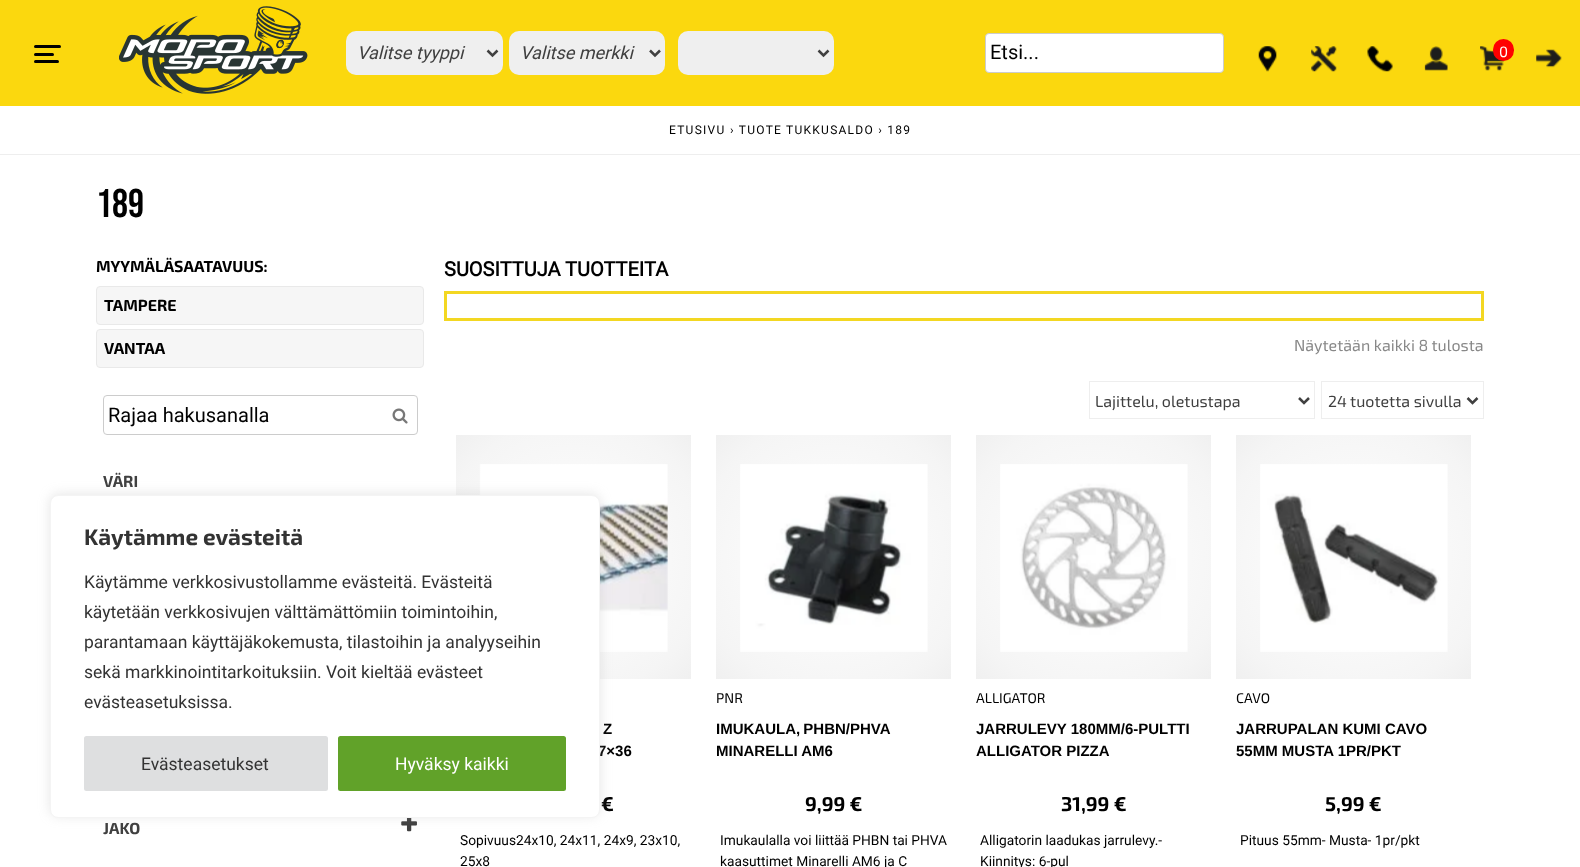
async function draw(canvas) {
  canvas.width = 1580;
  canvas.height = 867;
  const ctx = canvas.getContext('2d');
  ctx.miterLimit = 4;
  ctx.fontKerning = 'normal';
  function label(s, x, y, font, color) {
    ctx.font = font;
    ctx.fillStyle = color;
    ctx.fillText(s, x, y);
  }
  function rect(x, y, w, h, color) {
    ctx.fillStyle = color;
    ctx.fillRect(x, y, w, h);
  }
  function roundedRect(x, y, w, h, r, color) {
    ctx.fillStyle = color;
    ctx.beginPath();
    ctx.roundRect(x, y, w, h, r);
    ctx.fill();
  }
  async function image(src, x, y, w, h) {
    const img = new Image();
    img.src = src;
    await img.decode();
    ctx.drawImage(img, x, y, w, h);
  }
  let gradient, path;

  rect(0, 0, 1580, 867, '#fff');
  rect(0, 0, 1580, 106, '#fbd80e');
  roundedRect(34, 45, 27, 3, 1.5, '#000');
  roundedRect(34, 53, 20, 3, 1.5, '#000');
  roundedRect(34, 60, 25, 3, 1.5, '#000');
  await image('assets/img1.png', 119, 6, 189, 88);
  roundedRect(346, 31, 157, 44, 10, '#efefef');
  path = new Path2D('M487.5 50.5L492.5 55.5L497.5 50.5');
  ctx.strokeStyle = '#404040';
  ctx.lineWidth = 2.5;
  ctx.stroke(path);
  label('Valitse tyyppi', 357, 59, 'italic 18px Roboto', '#404040');
  roundedRect(509, 31, 156, 44, 10, '#efefef');
  path = new Path2D('M650 50.5L655 55.5L660 50.5');
  ctx.stroke(path);
  label('Valitse merkki', 520, 59, 'italic 18px Roboto', '#404040');
  roundedRect(678, 31, 156, 44, 10, '#efefef');
  path = new Path2D('M818.5 50.5L823.5 55.5L828.5 50.5');
  ctx.stroke(path);
  ctx.fillStyle = '#fff';
  ctx.beginPath();
  ctx.roundRect(985.5, 33.5, 238, 39, 3.5);
  ctx.fill();
  ctx.strokeStyle = '#ccc';
  ctx.lineWidth = 1;
  ctx.stroke();
  label('Etsi...', 990, 59, '20px Roboto', '#000');
  await image('assets/img2.png', 1258, 46, 19, 26);
  await image('assets/img3.png', 1311, 46, 26, 26);
  await image('assets/img4.png', 1367, 46, 26, 26);
  await image('assets/img5.png', 1424, 46, 24, 25);
  await image('assets/img6.png', 1480, 46, 25, 25);
  roundedRect(1493, 39, 21, 22, 10.5, '#f00');
  label('0', 1499, 57, '15px "Exo 2"', '#fff');
  await image('assets/img7.png', 1536, 49, 26, 19);
  rect(0, 154, 1580, 1, '#eee');
  ctx.letterSpacing = '1.25px';
  label('ETUSIVU', 669, 134, '12px Roboto', '#000');
  label('› TUOTE TUKKUSALDO › 189', 730, 134, '12px Roboto', '#000');
  ctx.letterSpacing = '0px';
  label('189', 96, 217, '40px Bebas Neue', '#000');
  label('MYYMÄLÄSAATAVUUS:', 96, 272, 'bold 16px "Exo 2"', '#000');
  ctx.fillStyle = '#f6f6f6';
  ctx.beginPath();
  ctx.roundRect(96.5, 286.5, 327, 38, 3.5);
  ctx.fill();
  ctx.strokeStyle = '#e9e9e9';
  ctx.stroke();
  label('TAMPERE', 104, 311, 'bold 16px "Exo 2"', '#000');
  ctx.fillStyle = '#f6f6f6';
  ctx.beginPath();
  ctx.roundRect(96.5, 329.5, 327, 38, 3.5);
  ctx.fill();
  ctx.stroke();
  label('VANTAA', 104, 354, 'bold 16px "Exo 2"', '#000');
  ctx.beginPath();
  ctx.roundRect(103.5, 395.5, 314, 39, 3.5);
  ctx.strokeStyle = '#ccc';
  ctx.stroke();
  label('Rajaa hakusanalla', 108, 422, '20px Roboto', '#000');
  await image('assets/img8.png', 392, 408, 16, 16);
  label('VÄRI', 103, 487, 'bold 16px "Exo 2"', '#404040');
  label('JAKO', 103, 834, 'bold 16px "Exo 2"', '#404040');
  await image('assets/img9.png', 401, 818, 16, 14);
  label('SUOSITTUJA TUOTTEITA', 444, 276, 'bold 20px Roboto', '#000');
  ctx.strokeStyle = '#f3d722';
  ctx.lineWidth = 3;
  ctx.strokeRect(445.5, 292.5, 1037, 27);
  label('Näytetään kaikki 8 tulosta', 1294, 351, '16px "Exo 2"', '#888');
  ctx.strokeStyle = '#eee';
  ctx.lineWidth = 1;
  ctx.strokeRect(1089.5, 381.5, 225, 37);
  path = new Path2D('M1299 398L1304 403L1309 398');
  ctx.strokeStyle = '#404040';
  ctx.lineWidth = 2.5;
  ctx.stroke(path);
  label('Lajittelu, oletustapa', 1095, 407, '16px "Exo 2"', '#404040');
  ctx.strokeStyle = '#eee';
  ctx.lineWidth = 1;
  ctx.strokeRect(1321.5, 381.5, 162, 37);
  path = new Path2D('M1467.5 398L1472.5 403L1477.5 398');
  ctx.strokeStyle = '#404040';
  ctx.lineWidth = 2.5;
  ctx.stroke(path);
  label('24 tuotetta sivulla', 1328, 407, '16px "Exo 2"', '#404040');
  gradient = ctx.createRadialGradient(574, 557, 0, 574, 557, 169);
  gradient.addColorStop(0, '#fff');
  gradient.addColorStop(0.81, '#f5f5f5');
  gradient.addColorStop(1, '#f0f0f0');
  ctx.fillStyle = gradient;
  ctx.fillRect(456, 435, 235, 244);
  await image('assets/img10.png', 479, 464, 189, 188);
  label('Z', 603, 734, 'bold 15px Liberation Sans', '#000');
  label('7×36', 598, 756, 'bold 15px Liberation Sans', '#000');
  label('€', 601, 811, 'bold 20px "Exo 2"', '#000');
  label('Sopivuus24x10, 24x11, 24x9, 23x10,', 460, 845, '13.75px Roboto', '#000');
  label('25x8', 460, 866, '13.75px Roboto', '#000');
  gradient = ctx.createRadialGradient(834, 557, 0, 834, 557, 169);
  gradient.addColorStop(0, '#fff');
  gradient.addColorStop(0.81, '#f5f5f5');
  gradient.addColorStop(1, '#f0f0f0');
  ctx.fillStyle = gradient;
  ctx.fillRect(716, 435, 235, 244);
  await image('assets/img11.png', 740, 464, 188, 188);
  label('PNR', 716, 703, '14px "Exo 2"', '#000');
  ctx.wordSpacing = '-1px';
  label('IMUKAULA, PHBN/PHVA', 716, 734, 'bold 15px Liberation Sans', '#000');
  ctx.wordSpacing = '0px';
  label('MINARELLI AM6', 716, 756, 'bold 15px Liberation Sans', '#000');
  label('9,99 €', 805, 811, 'bold 20px "Exo 2"', '#000');
  label('Imukaulalla voi liittää PHBN tai PHVA', 720, 845, '13.75px Roboto', '#000');
  label('kaasuttimet Minarelli AM6 ja C', 720, 866, '13.75px Roboto', '#000');
  gradient = ctx.createRadialGradient(1094, 557, 0, 1094, 557, 169);
  gradient.addColorStop(0, '#fff');
  gradient.addColorStop(0.81, '#f5f5f5');
  gradient.addColorStop(1, '#f0f0f0');
  ctx.fillStyle = gradient;
  ctx.fillRect(976, 435, 235, 244);
  await image('assets/img12.png', 1000, 464, 188, 188);
  label('ALLIGATOR', 976, 703, '14px "Exo 2"', '#000');
  label('JARRULEVY 180MM/6-PULTTI', 976, 734, 'bold 15px Liberation Sans', '#000');
  label('ALLIGATOR PIZZA', 976, 756, 'bold 15px Liberation Sans', '#000');
  label('31,99 €', 1061, 811, 'bold 20px "Exo 2"', '#000');
  label('Alligatorin laadukas jarrulevy.-', 980, 845, '13.75px Roboto', '#000');
  label('Kiinnitys: 6-pul', 980, 866, '13.75px Roboto', '#000');
  gradient = ctx.createRadialGradient(1354, 557, 0, 1354, 557, 169);
  gradient.addColorStop(0, '#fff');
  gradient.addColorStop(0.81, '#f5f5f5');
  gradient.addColorStop(1, '#f0f0f0');
  ctx.fillStyle = gradient;
  ctx.fillRect(1236, 435, 235, 244);
  await image('assets/img13.png', 1260, 464, 188, 188);
  label('CAVO', 1236, 703, '14px "Exo 2"', '#000');
  label('JARRUPALAN KUMI CAVO', 1236, 734, 'bold 15px Liberation Sans', '#000');
  label('55MM MUSTA 1PR/PKT', 1236, 756, 'bold 15px Liberation Sans', '#000');
  label('5,99 €', 1325, 811, 'bold 20px "Exo 2"', '#000');
  label('Pituus 55mm- Musta- 1pr/pkt', 1240, 845, '13.75px Roboto', '#000');
  ctx.fillStyle = '#acabab4d';
  ctx.filter = 'blur(6px)';
  ctx.beginPath();
  ctx.roundRect(50, 494, 550, 322, 8);
  ctx.fill();
  ctx.filter = 'none';
  ctx.fillStyle = '#fff';
  ctx.beginPath();
  ctx.roundRect(50.5, 495.5, 549, 322, 7.5);
  ctx.fill();
  ctx.strokeStyle = '#f4f4f4';
  ctx.lineWidth = 1;
  ctx.stroke();
  label('Käytämme evästeitä', 84, 545, 'bold 22.5px "Exo 2"', '#333');
  label('Käytämme verkkosivustollamme evästeitä. Evästeitä', 84, 588, '17.5px Roboto', '#333');
  label('käytetään verkkosivujen välttämättömiin toimintoihin,', 84, 618, '17.5px Roboto', '#333');
  label('parantamaan käyttäjäkokemusta, tilastoihin ja analyyseihin', 84, 648, '17.5px Roboto', '#333');
  label('sekä markkinointitarkoituksiin. Voit kieltää evästeet', 84, 678, '17.5px Roboto', '#333');
  label('evästeasetuksissa.', 84, 708, '17.5px Roboto', '#333');
  ctx.fillStyle = '#dedfe0';
  ctx.beginPath();
  ctx.roundRect(85.5, 737.5, 241, 52, 1);
  ctx.fill();
  ctx.strokeStyle = '#dedfe0';
  ctx.lineWidth = 3;
  ctx.stroke();
  label('Evästeasetukset', 141, 770, '17.5px Roboto', '#333');
  ctx.fillStyle = '#61a229';
  ctx.beginPath();
  ctx.roundRect(339.5, 737.5, 225, 52, 1);
  ctx.fill();
  ctx.strokeStyle = '#61a229';
  ctx.stroke();
  label('Hyväksy kaikki', 395, 770, '17.5px Roboto', '#fff');
}

draw(document.querySelector('canvas'));
